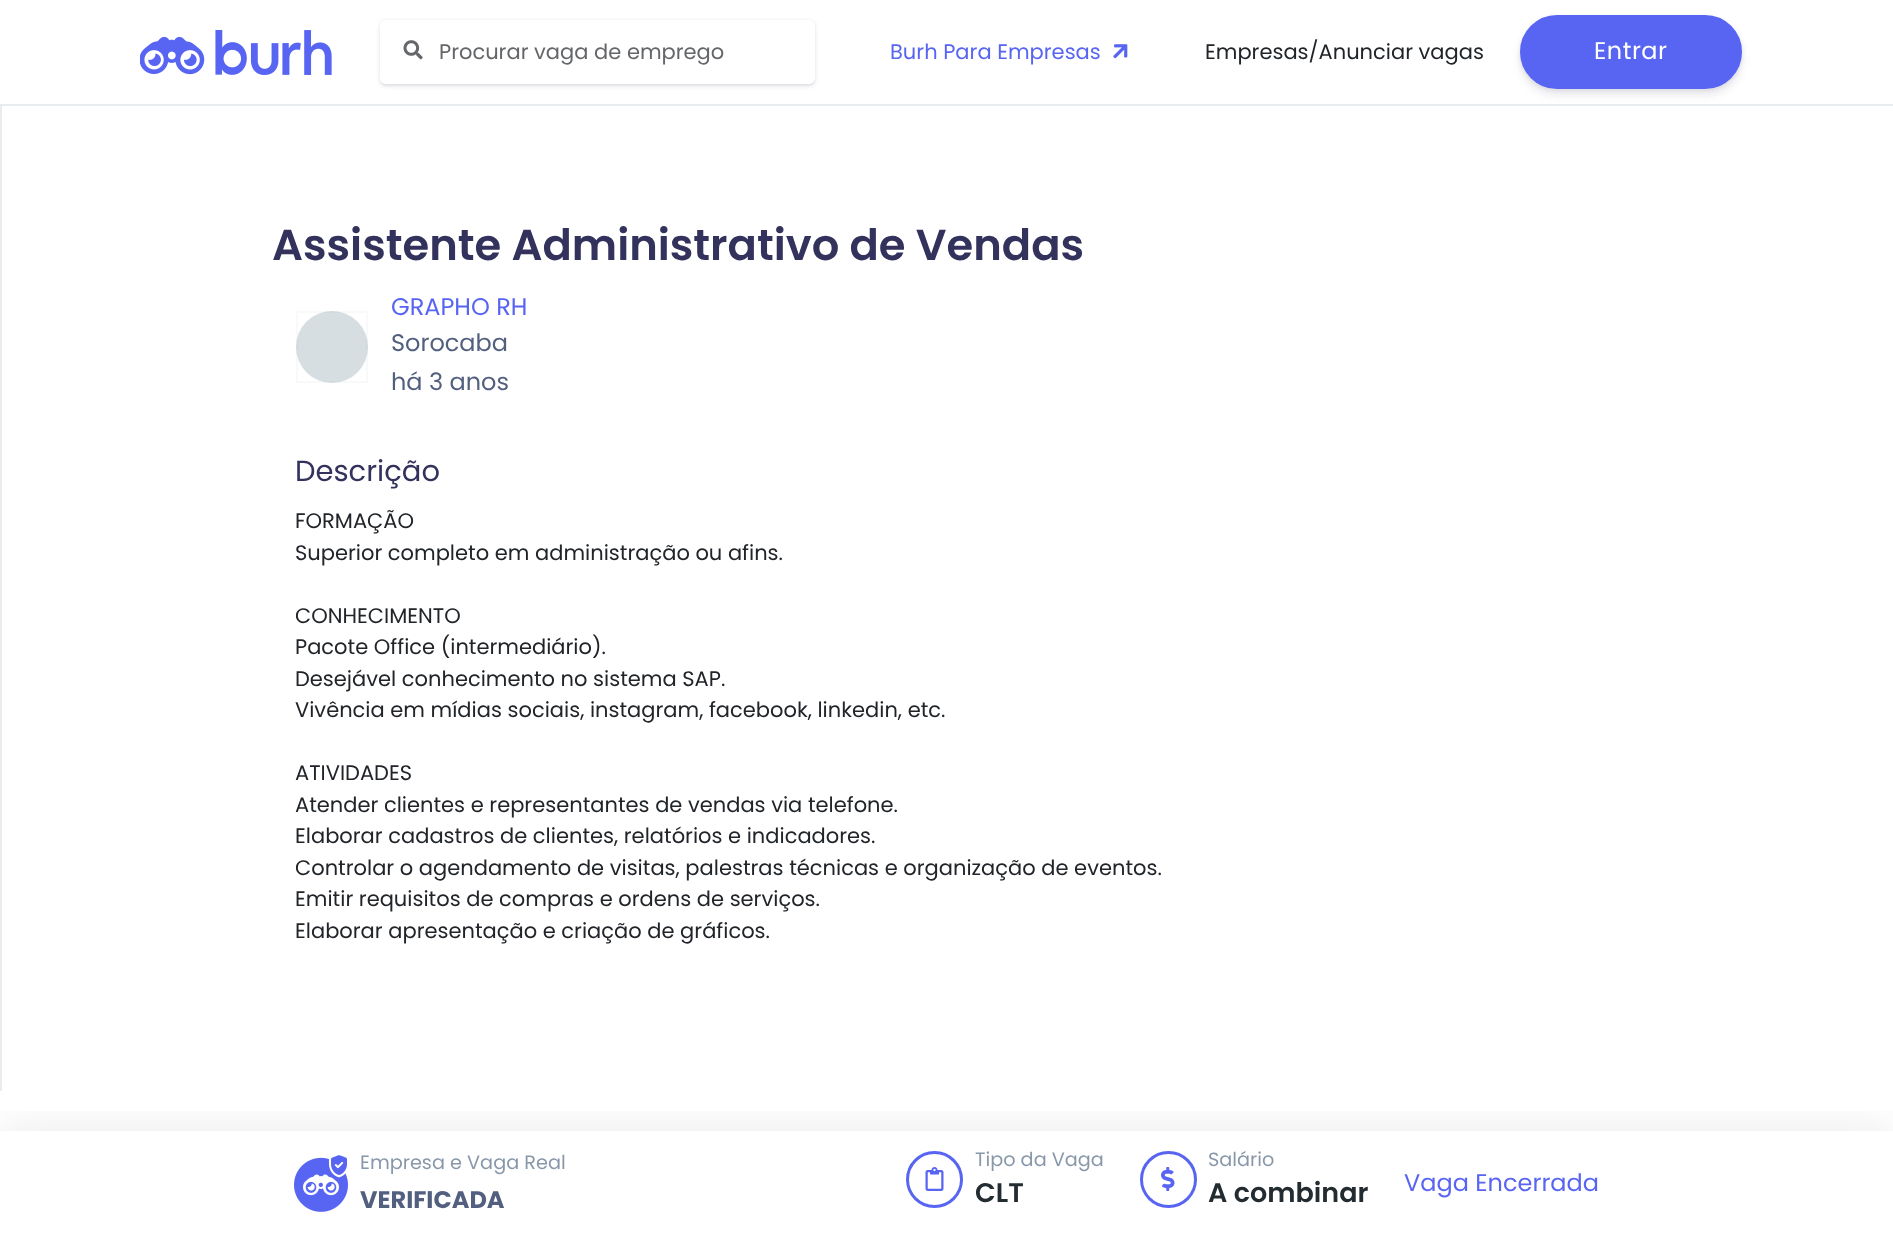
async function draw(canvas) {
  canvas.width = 1893;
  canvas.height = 1236;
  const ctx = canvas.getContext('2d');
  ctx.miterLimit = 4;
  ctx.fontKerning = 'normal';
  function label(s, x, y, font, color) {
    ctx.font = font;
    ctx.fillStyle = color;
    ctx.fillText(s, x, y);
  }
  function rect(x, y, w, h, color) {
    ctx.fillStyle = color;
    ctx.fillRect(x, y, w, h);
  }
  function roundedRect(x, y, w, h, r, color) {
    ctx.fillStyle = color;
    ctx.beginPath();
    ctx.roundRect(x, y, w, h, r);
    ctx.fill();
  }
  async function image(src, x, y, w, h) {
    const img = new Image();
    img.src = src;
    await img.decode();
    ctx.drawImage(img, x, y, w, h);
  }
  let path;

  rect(0, 0, 1893, 1236, '#fff');
  rect(0, 105, 2, 986, '#ebebeb');
  rect(0, 104, 1893, 2, '#e9ecef');
  await image('assets/img1.png', 140, 30, 192, 45);
  ctx.fillStyle = '#fafafa';
  path = new Path2D('M380 80C380 84 383 86 386 86H809C812 86 815 83 815 80V27L814 24V78C814 81 812 84 808 84H386C383 84 381 83 380 80Z');
  ctx.fill(path);
  ctx.fillStyle = '#32325d26';
  ctx.filter = 'blur(2px)';
  ctx.beginPath();
  ctx.roundRect(380, 21, 435, 65, 6);
  ctx.fill();
  ctx.filter = 'none';
  roundedRect(380, 20, 435, 64, 6, '#fff');
  await image('assets/img2.png', 403, 40, 20, 20);
  label('Procurar vaga de emprego', 439, 59, '21px Poppins', '#646669');
  label('Burh Para Empresas', 890, 59, '21px Poppins', '#5865f2');
  await image('assets/img3.png', 1113, 44, 15, 15);
  label('Empresas/Anunciar vagas', 1205, 59, '21px Poppins', '#212529');
  ctx.fillStyle = '#00000014';
  ctx.filter = 'blur(2px)';
  ctx.beginPath();
  ctx.roundRect(1520, 17, 222, 73, 36.5);
  ctx.fill();
  ctx.filter = 'none';
  ctx.fillStyle = '#32325d1c';
  ctx.filter = 'blur(4.5px)';
  ctx.beginPath();
  ctx.roundRect(1520, 21, 222, 74, 37);
  ctx.fill();
  ctx.filter = 'none';
  ctx.fillStyle = '#5865f2';
  ctx.beginPath();
  ctx.roundRect(1521, 16, 220, 72, 36);
  ctx.fill();
  ctx.strokeStyle = '#5865f2';
  ctx.lineWidth = 2;
  ctx.stroke();
  ctx.letterSpacing = '0.5px';
  label('Entrar', 1594, 59, '24px Poppins', '#fff');
  ctx.letterSpacing = '0px';
  label('Assistente Administrativo de Vendas', 272, 260, '600 43.25px Poppins', '#32325d');
  ctx.fillStyle = '#d7dee1';
  ctx.beginPath();
  ctx.arc(332, 347, 36, 0, 2 * Math.PI);
  ctx.fill();
  ctx.strokeStyle = '#7e96a10d';
  ctx.strokeRect(297, 312, 70, 70);
  ctx.save();
  ctx.beginPath();
  ctx.rect(392, 290, 135, 36);
  ctx.clip();
  label('GRAPHO RH', 391, 315, '24px Poppins', '#5865f2');
  ctx.restore();
  label('Sorocaba', 391, 351, '24px Poppins', '#525f7f');
  label('há 3 anos', 391, 390, '24px Poppins', '#525f7f');
  label('Descrição', 295, 481, '29px Poppins', '#32325d');
  label('FORMAÇÃO', 295, 528, '21px Poppins', '#212529');
  label('Superior completo em administração ou afins.', 295, 560, '21px Poppins', '#212529');
  ctx.save();
  ctx.beginPath();
  ctx.rect(296, 506, 1305, 441);
  ctx.clip();
  label('CONHECIMENTO', 295, 623, '21px Poppins', '#212529');
  ctx.restore();
  label('Pacote Office (intermediário).', 295, 654, '21px Poppins', '#212529');
  label('Desejável conhecimento no sistema SAP.', 295, 686, '21px Poppins', '#212529');
  label('Vivência em mídias sociais, instagram, facebook, linkedin, etc.', 295, 717, '21px Poppins', '#212529');
  label('ATIVIDADES', 295, 780, '21px Poppins', '#212529');
  label('Atender clientes e representantes de vendas via telefone.', 295, 812, '21px Poppins', '#212529');
  label('Elaborar cadastros de clientes, relatórios e indicadores.', 295, 843, '21px Poppins', '#212529');
  ctx.save();
  ctx.beginPath();
  ctx.rect(296, 506, 1305, 441);
  ctx.clip();
  label('Controlar o agendamento de visitas, palestras técnicas e organização de eventos.', 295, 875, '21px Poppins', '#212529');
  ctx.restore();
  label('Emitir requisitos de compras e ordens de serviços.', 295, 906, '21px Poppins', '#212529');
  label('Elaborar apresentação e criação de gráficos.', 295, 938, '21px Poppins', '#212529');
  ctx.save();
  ctx.beginPath();
  ctx.rect(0, 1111, 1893, 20);
  ctx.clip();
  ctx.fillStyle = '#232c301a';
  ctx.filter = 'blur(24px)';
  ctx.beginPath();
  ctx.rect(0, 1131, 1893, 105);
  ctx.fill();
  ctx.filter = 'none';
  ctx.restore();
  await image('assets/img4.png', 294, 1155, 54, 57);
  label('Empresa e Vaga Real', 360, 1169, '19.25px Poppins', '#8898aa');
  label('VERIFICADA', 360, 1208, 'bold 24px Poppins', '#525f7f');
  ctx.beginPath();
  ctx.arc(934.5, 1179.5, 27, 0, 2 * Math.PI);
  ctx.strokeStyle = '#5865f2';
  ctx.lineWidth = 3;
  ctx.stroke();
  await image('assets/img5.png', 925, 1167, 19, 24);
  label('Tipo da Vaga', 975, 1166, '19.25px Poppins', '#8898aa');
  label('CLT', 975, 1202, '600 27px Poppins', '#232c30');
  ctx.beginPath();
  ctx.arc(1168.5, 1179.5, 27, 0, 2 * Math.PI);
  ctx.stroke();
  await image('assets/img6.png', 1161, 1167, 14, 24);
  label('Salário', 1208, 1166, '19.25px Poppins', '#8898aa');
  label('A combinar', 1208, 1202, '600 27px Poppins', '#232c30');
  label('Vaga Encerrada', 1404, 1191, '24px Poppins', '#5865f2');
}

draw(document.querySelector('canvas'));
